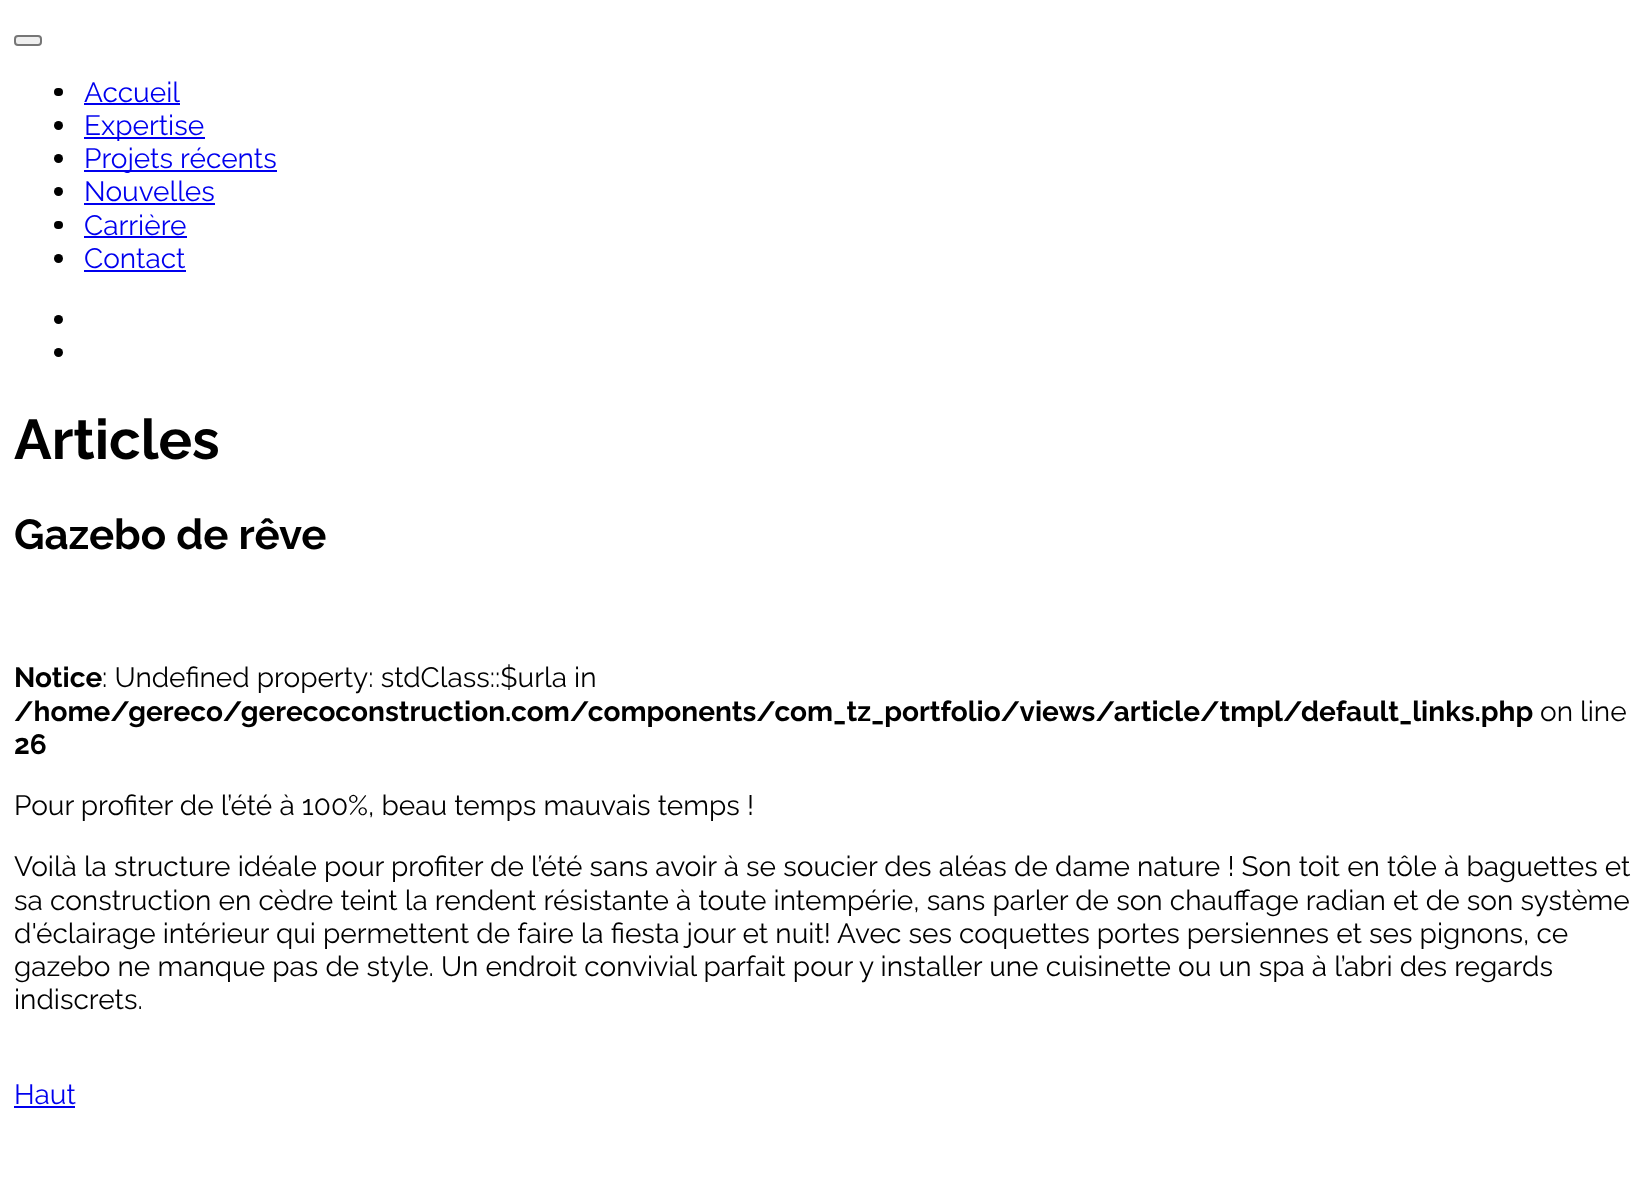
async function draw(canvas) {
  canvas.width = 1648;
  canvas.height = 1191;
  const ctx = canvas.getContext('2d');
  ctx.miterLimit = 4;
  ctx.fontKerning = 'normal';
  function label(s, x, y, font, color) {
    ctx.font = font;
    ctx.fillStyle = color;
    ctx.fillText(s, x, y);
  }
  function rect(x, y, w, h, color) {
    ctx.fillStyle = color;
    ctx.fillRect(x, y, w, h);
  }
  function roundedRect(x, y, w, h, r, color) {
    ctx.fillStyle = color;
    ctx.beginPath();
    ctx.roundRect(x, y, w, h, r);
    ctx.fill();
  }

  rect(0, 0, 1648, 1191, '#fff');
  ctx.fillStyle = '#efefef';
  ctx.beginPath();
  ctx.roundRect(15, 36, 26, 9, 3);
  ctx.fill();
  ctx.strokeStyle = '#767676';
  ctx.lineWidth = 2;
  ctx.stroke();
  roundedRect(54, 88, 9, 8, 4, '#000');
  label('Accueil', 84, 102, '28px Raleway', '#00e');
  rect(84, 103, 96, 2, '#00e');
  ctx.fillStyle = '#000';
  ctx.beginPath();
  ctx.arc(58.5, 125.5, 4.5, 0, 2 * Math.PI);
  ctx.fill();
  rect(84, 137, 121, 2, '#00e');
  label('Expertise', 84, 135, '28px Raleway', '#00e');
  ctx.fillStyle = '#000';
  ctx.beginPath();
  ctx.arc(58.5, 158.5, 4.5, 0, 2 * Math.PI);
  ctx.fill();
  rect(84, 170, 193, 2, '#00e');
  label('Projets récents', 84, 168, '28px Raleway', '#00e');
  ctx.fillStyle = '#000';
  ctx.beginPath();
  ctx.arc(58.5, 191.5, 4.5, 0, 2 * Math.PI);
  ctx.fill();
  label('Nouvelles', 84, 201, '28px Raleway', '#00e');
  rect(84, 203, 131, 2, '#00e');
  roundedRect(54, 221, 9, 8, 4, '#000');
  label('Carrière', 84, 235, '28px Raleway', '#00e');
  rect(84, 236, 103, 2, '#00e');
  ctx.fillStyle = '#000';
  ctx.beginPath();
  ctx.arc(58.5, 258.5, 4.5, 0, 2 * Math.PI);
  ctx.fill();
  label('Contact', 84, 268, '28px Raleway', '#00e');
  rect(84, 270, 102, 2, '#00e');
  ctx.fillStyle = '#000';
  ctx.beginPath();
  ctx.arc(58.5, 319.5, 4.5, 0, 2 * Math.PI);
  ctx.fill();
  ctx.beginPath();
  ctx.arc(58.5, 352.5, 4.5, 0, 2 * Math.PI);
  ctx.fill();
  label('Articles', 14, 459, 'bold 56px Raleway', '#000');
  label('Gazebo de rêve', 14, 549, 'bold 42px Raleway', '#000');
  label('Notice', 14, 687, 'bold 28px Raleway', '#000');
  label(': Undefined property: stdClass::$urla in', 102, 687, '28px Raleway', '#000');
  label('/home/gereco/gerecoconstruction.com/components/com_tz_portfolio/views/article/tmpl/default_links.php', 14, 721, 'bold 28px Raleway', '#000');
  label('on line', 1540, 721, '28px Raleway', '#000');
  label('26', 14, 754, 'bold 28px Raleway', '#000');
  label('Pour profiter de l’été à 100%, beau temps mauvais temps !', 14, 815, '28px Raleway', '#000');
  label('Voilà la structure idéale pour profiter de l’été sans avoir à se soucier des aléas de dame nature ! Son toit en tôle à baguettes et', 14, 876, '28px Raleway', '#000');
  label('sa construction en cèdre teint la rendent résistante à toute intempérie, sans parler de son chauffage radian et de son système', 14, 910, '28px Raleway', '#000');
  label('d\'éclairage intérieur qui permettent de faire la fiesta jour et nuit! Avec ses coquettes portes persiennes et ses pignons, ce', 14, 943, '28px Raleway', '#000');
  label('gazebo ne manque pas de style. Un endroit convivial parfait pour y installer une cuisinette ou un spa à l’abri des regards', 14, 976, '28px Raleway', '#000');
  label('indiscrets.', 14, 1009, '28px Raleway', '#000');
  label('Haut', 14, 1104, '28px Raleway', '#00e');
  rect(14, 1106, 61, 2, '#00e');
}

draw(document.querySelector('canvas'));
